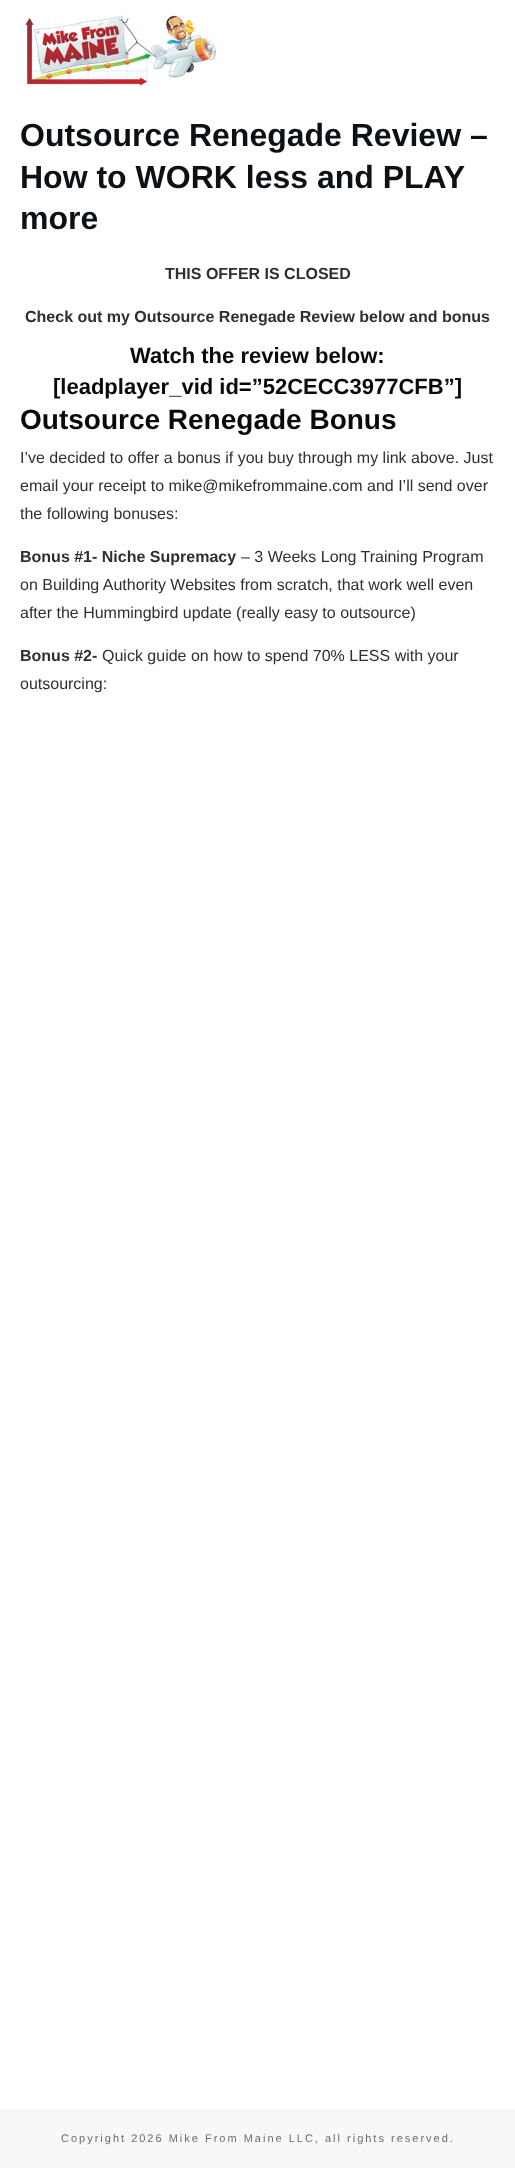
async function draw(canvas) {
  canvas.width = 515;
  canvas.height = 2168;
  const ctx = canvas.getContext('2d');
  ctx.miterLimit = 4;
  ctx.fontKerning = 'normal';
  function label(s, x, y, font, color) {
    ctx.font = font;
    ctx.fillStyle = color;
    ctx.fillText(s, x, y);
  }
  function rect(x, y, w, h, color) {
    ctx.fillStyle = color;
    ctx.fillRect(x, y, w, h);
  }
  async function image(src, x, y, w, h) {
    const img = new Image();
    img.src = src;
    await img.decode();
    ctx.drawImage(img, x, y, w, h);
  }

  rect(0, 0, 515, 2168, '#fff');
  await image('assets/img1.png', 25, 15, 191, 71);
  label('Outsource Renegade Review –', 20, 146, 'bold 32px Liberation Sans', '#0c1115');
  label('How to WORK less and PLAY', 20, 188, 'bold 32px Liberation Sans', '#0c1115');
  label('more', 20, 229, 'bold 32px Liberation Sans', '#0c1115');
  label('THIS OFFER IS CLOSED', 165, 279, 'bold 16px Liberation Sans', '#2f2f2f');
  label('Check out my Outsource Renegade Review below and bonus', 25, 322, 'bold 16px Liberation Sans', '#2f2f2f');
  label('Watch the review below:', 130, 363, 'bold 22px Liberation Sans', '#0a0a0a');
  label('[leadplayer_vid id=”52CECC3977CFB”]', 53, 394, 'bold 22px Liberation Sans', '#0a0a0a');
  label('Outsource Renegade Bonus', 20, 429, 'bold 28px Liberation Sans', '#0a0a0a');
  label('I’ve decided to offer a bonus if you buy through my link above. Just', 20, 463, '16px Liberation Sans', '#2f2f2f');
  label('email your receipt to mike@mikefrommaine.com and I’ll send over', 20, 491, '16px Liberation Sans', '#2f2f2f');
  label('the following bonuses:', 20, 519, '16px Liberation Sans', '#2f2f2f');
  label('Bonus #1- Niche Supremacy', 20, 562, 'bold 16px Liberation Sans', '#2f2f2f');
  label('– 3 Weeks Long Training Program', 241, 562, '16px Liberation Sans', '#2f2f2f');
  label('on Building Authority Websites from scratch, that work well even', 20, 590, '16px Liberation Sans', '#2f2f2f');
  label('after the Hummingbird update (really easy to outsource)', 20, 618, '16px Liberation Sans', '#2f2f2f');
  label('Bonus #2-', 20, 661, 'bold 16px Liberation Sans', '#2f2f2f');
  label('Quick guide on how to spend 70% LESS with your', 102, 661, '16px Liberation Sans', '#2f2f2f');
  label('outsourcing:', 20, 689, '16px Liberation Sans', '#2f2f2f');
  rect(0, 2109, 515, 59, '#f8f8f8');
  ctx.letterSpacing = '2px';
  label('Copyright 2026 Mike From Maine LLC, all rights reserved.', 61, 2142, '11px Liberation Sans', '#6a6b6c');
}

draw(document.querySelector('canvas'));
